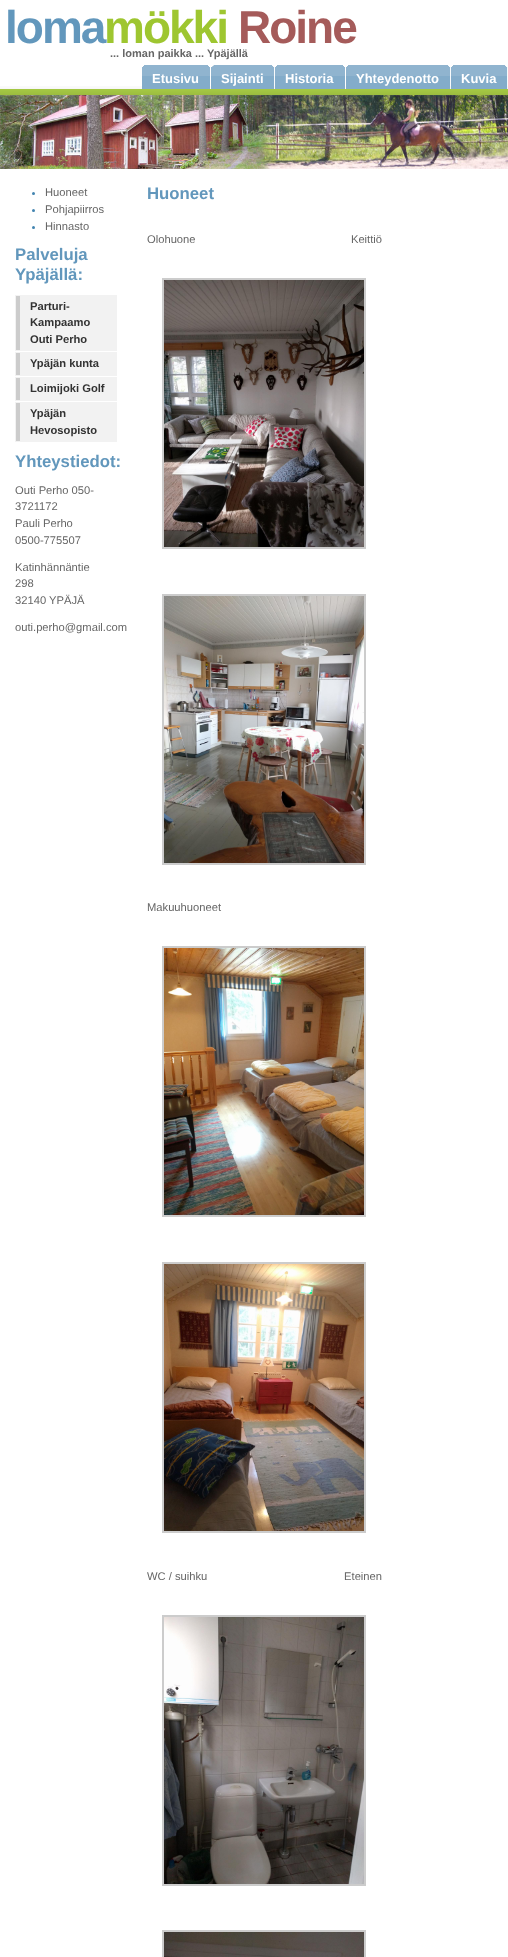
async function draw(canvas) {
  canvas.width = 508;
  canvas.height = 1957;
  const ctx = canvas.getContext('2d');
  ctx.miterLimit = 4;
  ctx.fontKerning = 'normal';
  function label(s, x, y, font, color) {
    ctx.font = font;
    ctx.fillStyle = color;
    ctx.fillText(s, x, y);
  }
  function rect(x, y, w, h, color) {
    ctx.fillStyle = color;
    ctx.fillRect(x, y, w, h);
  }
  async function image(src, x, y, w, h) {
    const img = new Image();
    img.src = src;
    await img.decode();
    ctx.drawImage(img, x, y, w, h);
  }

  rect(0, 0, 508, 1957, '#fff');
  await image('assets/img1.png', 0, 86, 508, 9);
  ctx.letterSpacing = '-2px';
  label('loma', 5, 43, 'bold 46px Liberation Sans', '#6297bc');
  label('mökki', 104, 43, 'bold 46px Liberation Sans', '#9ec630');
  label('Roine', 238, 43, 'bold 46px Liberation Sans', '#a55b5a');
  ctx.letterSpacing = '0px';
  label('... loman paikka ... Ypäjällä', 110, 57, 'bold 11px Liberation Sans', '#666');
  await image('assets/img2.png', 142, 65, 4, 24);
  await image('assets/img3.png', 146, 65, 64, 24);
  label('Etusivu', 152, 83, 'bold 13px Liberation Sans', '#fff');
  await image('assets/img4.png', 211, 65, 5, 24);
  await image('assets/img5.png', 216, 65, 59, 24);
  label('Sijainti', 221, 83, 'bold 13px Liberation Sans', '#fff');
  await image('assets/img2.png', 275, 65, 4, 24);
  await image('assets/img6.png', 279, 65, 66, 24);
  label('Historia', 285, 83, 'bold 13px Liberation Sans', '#fff');
  await image('assets/img2.png', 346, 65, 4, 24);
  await image('assets/img7.png', 350, 65, 101, 24);
  label('Yhteydenotto', 356, 83, 'bold 13px Liberation Sans', '#fff');
  await image('assets/img2.png', 451, 65, 4, 24);
  await image('assets/img8.png', 455, 65, 53, 24);
  label('Kuvia', 461, 83, 'bold 13px Liberation Sans', '#fff');
  await image('assets/img9.png', 0, 95, 508, 74);
  ctx.fillStyle = '#4284b0';
  ctx.beginPath();
  ctx.arc(33.5, 193.5, 1.5, 0, 2 * Math.PI);
  ctx.fill();
  label('Huoneet', 45, 196, '11.2px Liberation Sans', '#666');
  ctx.fillStyle = '#4284b0';
  ctx.beginPath();
  ctx.arc(33.5, 210.5, 1.5, 0, 2 * Math.PI);
  ctx.fill();
  label('Pohjapiirros', 45, 213, '11.2px Liberation Sans', '#666');
  ctx.fillStyle = '#4284b0';
  ctx.beginPath();
  ctx.arc(33.5, 227.5, 1.5, 0, 2 * Math.PI);
  ctx.fill();
  label('Hinnasto', 45, 230, '11.2px Liberation Sans', '#666');
  label('Palveluja', 15, 260, 'bold 16.75px Liberation Sans', '#6297bc');
  label('Ypäjällä:', 15, 280, 'bold 16.75px Liberation Sans', '#6297bc');
  ctx.strokeStyle = '#f2f2f2';
  ctx.strokeRect(15.5, 295.5, 101, 55);
  rect(20, 296, 96, 54, '#f2f2f2');
  rect(16, 296, 4, 54, '#ccc');
  label('Parturi-', 30, 310, 'bold 11.2px Liberation Sans', '#333');
  label('Kampaamo', 30, 326, 'bold 11.2px Liberation Sans', '#333');
  label('Outi Perho', 30, 343, 'bold 11.2px Liberation Sans', '#333');
  ctx.strokeRect(15.5, 352.5, 101, 23);
  rect(20, 353, 96, 22, '#f2f2f2');
  rect(16, 353, 4, 22, '#ccc');
  label('Ypäjän kunta', 30, 367, 'bold 11.2px Liberation Sans', '#333');
  ctx.strokeRect(15.5, 377.5, 101, 23);
  rect(20, 378, 96, 22, '#f2f2f2');
  rect(16, 378, 4, 22, '#ccc');
  label('Loimijoki Golf', 30, 392, 'bold 11.2px Liberation Sans', '#333');
  ctx.strokeRect(15.5, 402.5, 101, 39);
  rect(20, 403, 96, 38, '#f2f2f2');
  rect(16, 403, 4, 38, '#ccc');
  label('Ypäjän', 30, 417, 'bold 11.2px Liberation Sans', '#333');
  label('Hevosopisto', 30, 434, 'bold 11.2px Liberation Sans', '#333');
  label('Yhteystiedot:', 15, 467, 'bold 16.75px Liberation Sans', '#6297bc');
  label('Outi Perho 050-', 15, 494, '11.2px Liberation Sans', '#666');
  label('3721172', 15, 510, '11.2px Liberation Sans', '#666');
  label('Pauli Perho', 15, 527, '11.2px Liberation Sans', '#666');
  label('0500-775507', 15, 544, '11.2px Liberation Sans', '#666');
  label('Katinhännäntie', 15, 571, '11.2px Liberation Sans', '#666');
  label('298', 15, 587, '11.2px Liberation Sans', '#666');
  label('32140 YPÄJÄ', 15, 604, '11.2px Liberation Sans', '#666');
  label('outi.perho@gmail.com', 15, 631, '11.2px Liberation Sans', '#666');
  label('Huoneet', 147, 199, 'bold 16.75px Liberation Sans', '#6297bc');
  label('Olohuone                                                  Keittiö', 147, 243, '11.2px Liberation Sans', '#666');
  ctx.strokeStyle = '#ccc';
  ctx.lineWidth = 2;
  ctx.strokeRect(163, 279, 202, 269);
  await image('assets/img10.png', 164, 280, 200, 267);
  ctx.strokeRect(163, 595, 202, 269);
  await image('assets/img11.png', 164, 596, 200, 267);
  label('Makuuhuoneet', 147, 911, '11.2px Liberation Sans', '#666');
  ctx.strokeRect(163, 947, 202, 269);
  await image('assets/img12.png', 164, 948, 200, 267);
  ctx.strokeRect(163, 1263, 202, 269);
  await image('assets/img13.png', 164, 1264, 200, 267);
  label('WC / suihku                                            Eteinen', 147, 1580, '11.2px Liberation Sans', '#666');
  ctx.strokeRect(163, 1616, 202, 269);
  await image('assets/img14.png', 164, 1617, 200, 267);
  ctx.strokeRect(163, 1931, 202, 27);
  await image('assets/img15.png', 164, 1932, 200, 25);
}

draw(document.querySelector('canvas'));
